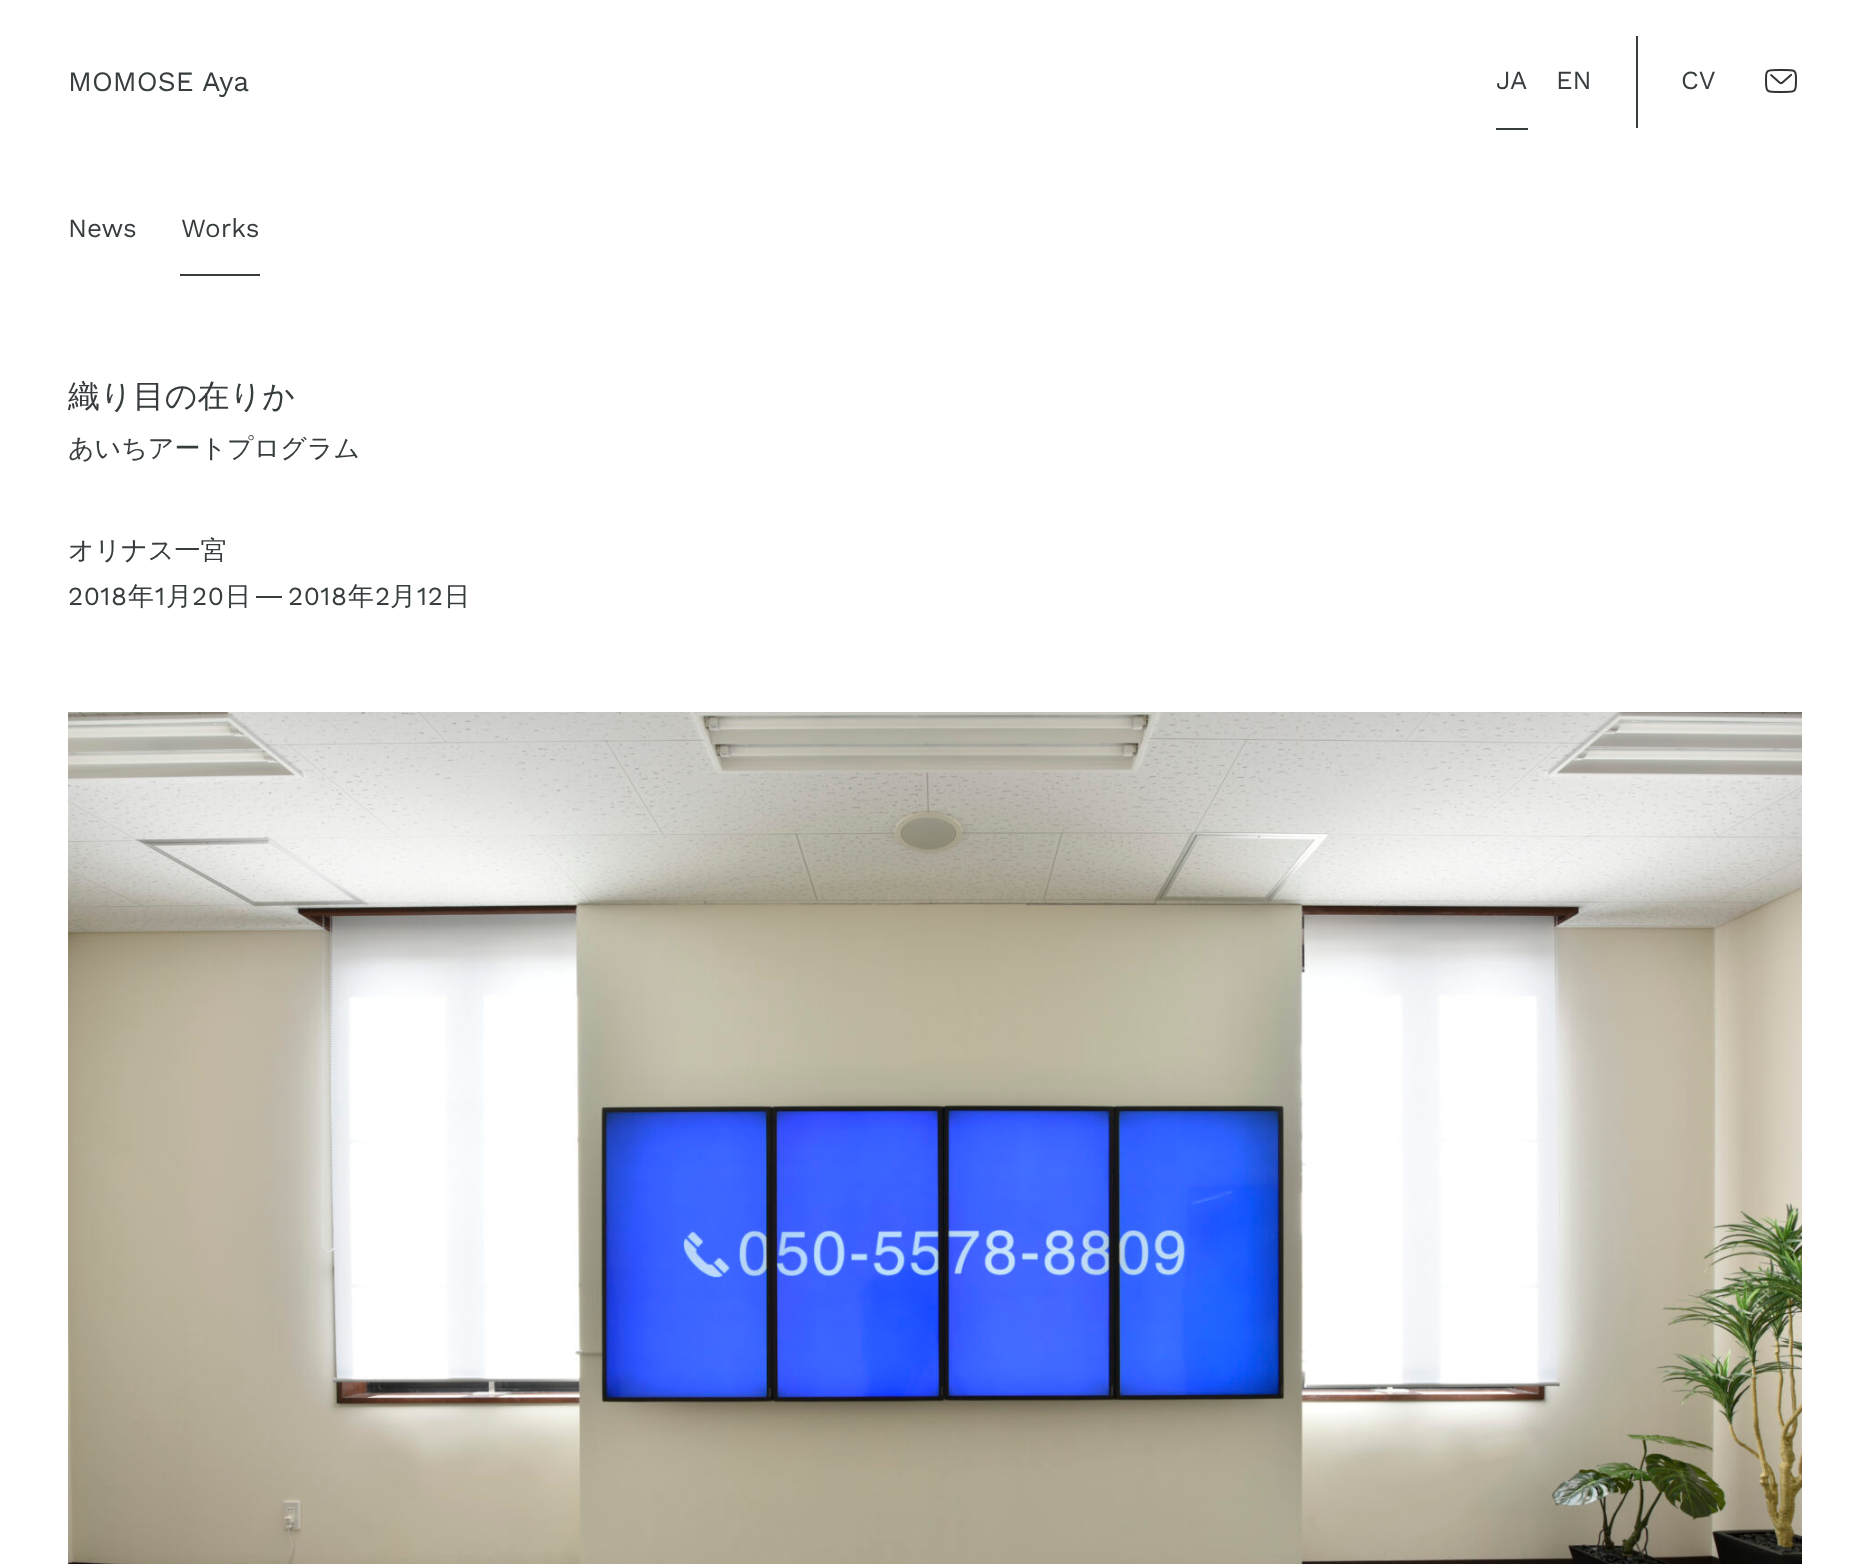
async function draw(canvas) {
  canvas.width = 1869;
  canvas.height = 1564;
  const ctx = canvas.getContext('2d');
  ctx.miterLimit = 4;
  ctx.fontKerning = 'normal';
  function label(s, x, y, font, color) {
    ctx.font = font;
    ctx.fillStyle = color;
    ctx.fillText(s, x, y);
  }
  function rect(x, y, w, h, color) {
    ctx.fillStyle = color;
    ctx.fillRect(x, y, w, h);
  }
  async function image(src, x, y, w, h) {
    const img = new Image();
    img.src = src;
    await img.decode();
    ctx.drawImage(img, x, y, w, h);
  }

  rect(0, 0, 1869, 1564, '#fff');
  label('MOMOSE Aya', 68, 91, '28px Work Sans', '#373d3f');
  rect(1496, 128, 32, 2, '#373d3f');
  label('JA', 1496, 89, '26px Work Sans', '#373d3f');
  label('EN', 1556, 89, '26px Work Sans', '#373d3f');
  rect(1636, 36, 2, 92, '#373d3f');
  label('CV', 1681, 89, '26px Work Sans', '#373d3f');
  await image('assets/img1.png', 1765, 69, 32, 24);
  label('News', 68, 237, '26px Work Sans', '#373d3f');
  label('Works', 181, 237, '26px Work Sans', '#373d3f');
  rect(180, 274, 80, 2, '#373d3f');
  label('織り目の在りか', 68, 407, '500 32px WenQuanYi Zen Hei', '#373d3f');
  label('あいちアートプログラム', 68, 457, '500 26px WenQuanYi Zen Hei', '#373d3f');
  label('オリナス一宮', 68, 559, '500 26px WenQuanYi Zen Hei', '#373d3f');
  ctx.letterSpacing = '0.5px';
  label('2018', 68, 605, '26px Work Sans', '#373d3f');
  label('年', 128, 605, '500 26px WenQuanYi Zen Hei', '#373d3f');
  label('1', 155, 605, '26px Work Sans', '#373d3f');
  label('月', 166, 605, '500 26px WenQuanYi Zen Hei', '#373d3f');
  label('20', 192, 605, '26px Work Sans', '#373d3f');
  label('日', 225, 605, '500 26px WenQuanYi Zen Hei', '#373d3f');
  rect(256, 596, 26, 2, '#373d3f');
  label('2018', 288, 605, '26px Work Sans', '#373d3f');
  label('年', 348, 605, '500 26px WenQuanYi Zen Hei', '#373d3f');
  label('2', 375, 605, '26px Work Sans', '#373d3f');
  label('月', 390, 605, '500 26px WenQuanYi Zen Hei', '#373d3f');
  label('12', 417, 605, '26px Work Sans', '#373d3f');
  label('日', 444, 605, '500 26px WenQuanYi Zen Hei', '#373d3f');
  await image('assets/img2.png', 68, 712, 1734, 852);
}

draw(document.querySelector('canvas'));
